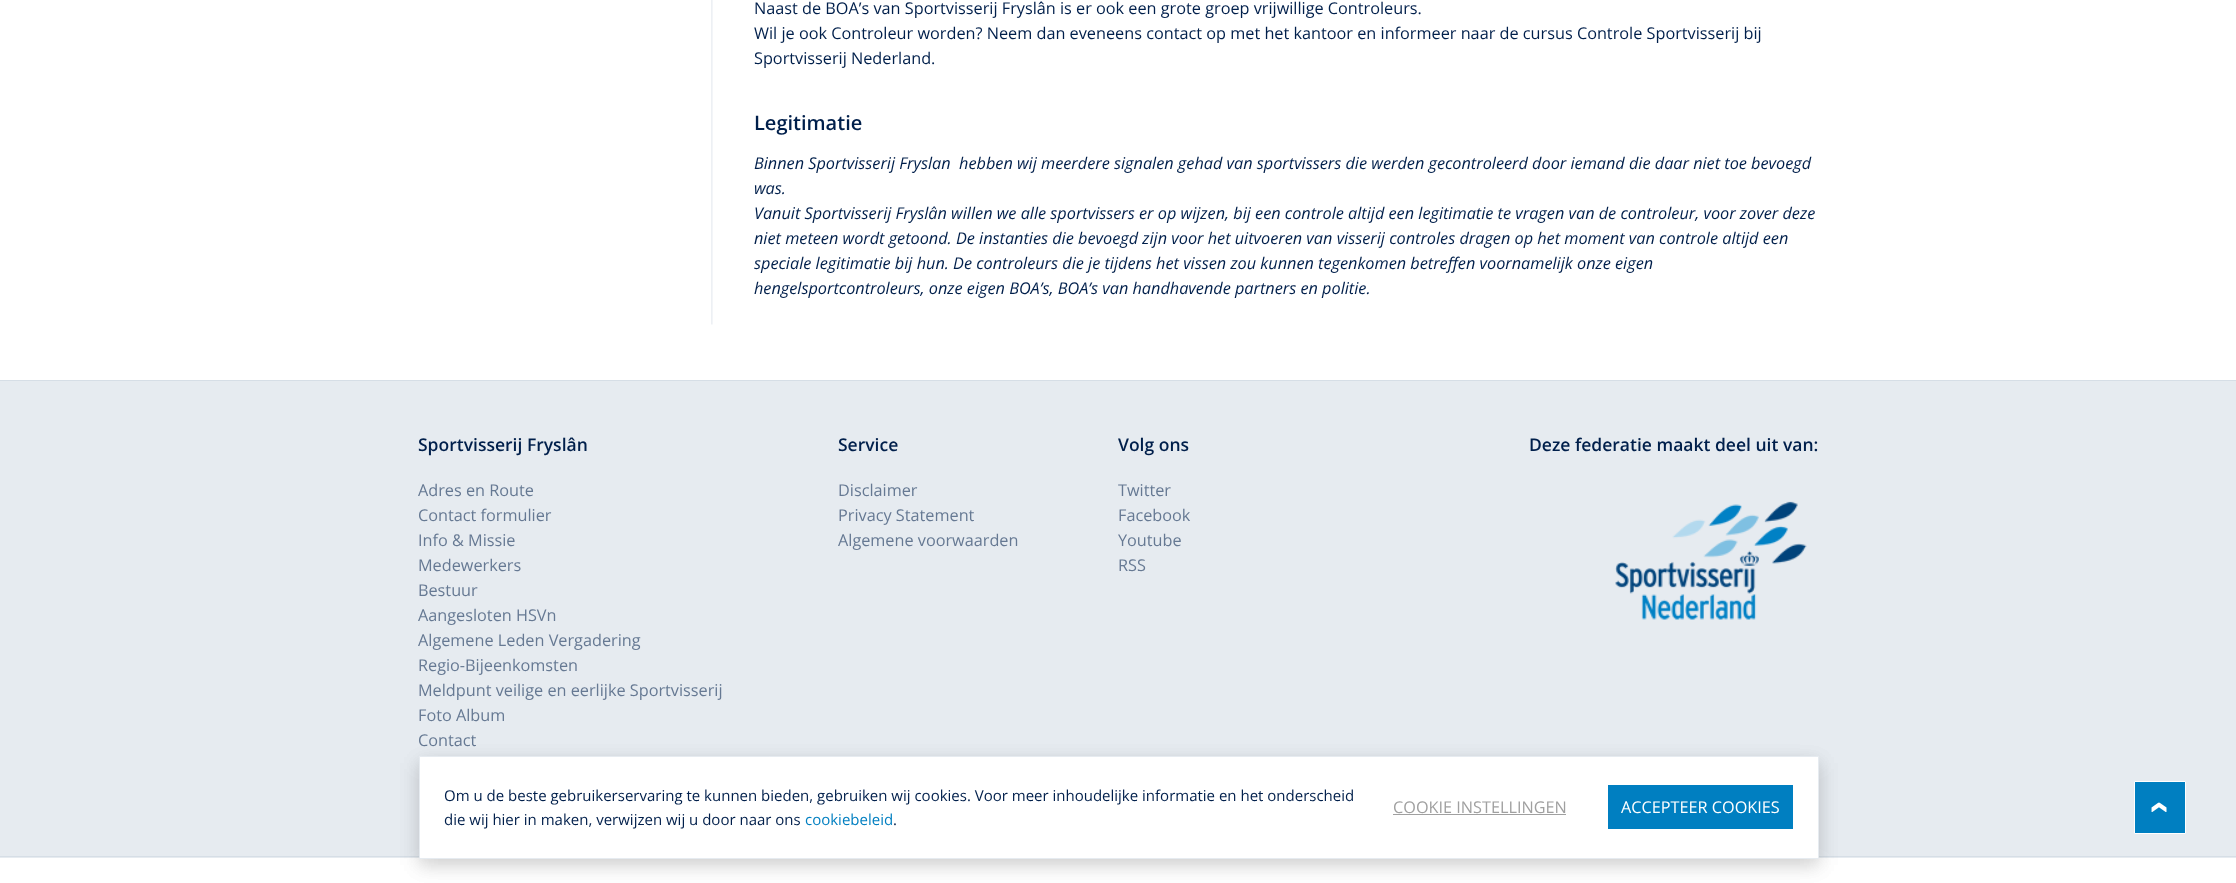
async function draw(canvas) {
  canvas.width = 2236;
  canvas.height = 883;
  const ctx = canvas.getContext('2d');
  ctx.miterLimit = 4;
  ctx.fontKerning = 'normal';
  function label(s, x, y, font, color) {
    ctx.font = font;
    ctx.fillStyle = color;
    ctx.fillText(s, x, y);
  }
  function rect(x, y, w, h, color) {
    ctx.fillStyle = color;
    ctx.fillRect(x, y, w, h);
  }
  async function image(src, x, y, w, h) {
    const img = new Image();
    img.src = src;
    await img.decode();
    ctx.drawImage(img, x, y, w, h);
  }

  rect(0, 0, 2236, 883, '#fff');
  await image('assets/img1.png', 711, 0, 2, 325);
  label('Naast de BOA’s van Sportvisserij Fryslân is er ook een grote groep vrijwillige Controleurs.', 754, 14, '16.25px Open Sans', '#001f4b');
  label('Wil je ook Controleur worden? Neem dan eveneens contact op met het kantoor en informeer naar de cursus Controle Sportvisserij bij', 754, 39, '16.25px Open Sans', '#001f4b');
  label('Sportvisserij Nederland.', 754, 64, '16.25px Open Sans', '#001f4b');
  label('Legitimatie', 754, 130, '600 20px Open Sans', '#001f4b');
  label('Binnen Sportvisserij Fryslan  hebben wij meerdere signalen gehad van sportvissers die werden gecontroleerd door iemand die daar niet toe bevoegd', 754, 169, 'italic 16.25px Open Sans', '#001f4b');
  label('was.', 754, 194, 'italic 16.25px Open Sans', '#001f4b');
  label('Vanuit Sportvisserij Fryslân willen we alle sportvissers er op wijzen, bij een controle altijd een legitimatie te vragen van de controleur, voor zover deze', 754, 219, 'italic 16.25px Open Sans', '#001f4b');
  label('niet meteen wordt getoond. De instanties die bevoegd zijn voor het uitvoeren van visserij controles dragen op het moment van controle altijd een', 754, 244, 'italic 16.25px Open Sans', '#001f4b');
  label('speciale legitimatie bij hun. De controleurs die je tijdens het vissen zou kunnen tegenkomen betreffen voornamelijk onze eigen', 754, 269, 'italic 16.25px Open Sans', '#001f4b');
  label('hengelsportcontroleurs, onze eigen BOA’s, BOA’s van handhavende partners en politie.', 754, 294, 'italic 16.25px Open Sans', '#001f4b');
  rect(0, 381, 2236, 477, '#e6ebf0');
  label('Sportvisserij Fryslân', 418, 451, '600 17.5px Open Sans', '#001f4b');
  label('Adres en Route', 418, 496, '16.25px Open Sans', '#667993');
  label('Contact formulier', 418, 521, '16.25px Open Sans', '#667993');
  label('Info & Missie', 418, 546, '16.25px Open Sans', '#667993');
  label('Medewerkers', 418, 571, '16.25px Open Sans', '#667993');
  label('Bestuur', 418, 596, '16.25px Open Sans', '#667993');
  label('Aangesloten HSVn', 418, 621, '16.25px Open Sans', '#667993');
  label('Algemene Leden Vergadering', 418, 646, '16.25px Open Sans', '#667993');
  label('Regio-Bijeenkomsten', 418, 671, '16.25px Open Sans', '#667993');
  label('Meldpunt veilige en eerlijke Sportvisserij', 418, 696, '16.25px Open Sans', '#667993');
  label('Foto Album', 418, 721, '16.25px Open Sans', '#667993');
  label('Contact', 418, 746, '16.25px Open Sans', '#667993');
  label('Service', 838, 451, '600 17.5px Open Sans', '#001f4b');
  label('Disclaimer', 838, 496, '16.25px Open Sans', '#667993');
  label('Privacy Statement', 838, 521, '16.25px Open Sans', '#667993');
  label('Algemene voorwaarden', 838, 546, '16.25px Open Sans', '#667993');
  label('Volg ons', 1118, 451, '600 17.5px Open Sans', '#001f4b');
  label('Twitter', 1118, 496, '16.25px Open Sans', '#667993');
  label('Facebook', 1118, 521, '16.25px Open Sans', '#667993');
  label('Youtube', 1118, 546, '16.25px Open Sans', '#667993');
  label('RSS', 1118, 571, '16.25px Open Sans', '#667993');
  label('Deze federatie maakt deel uit van:', 1529, 451, '600 17.5px Open Sans', '#001f4b');
  await image('assets/img2.png', 1615, 501, 192, 119);
  ctx.fillStyle = '#007fc1';
  ctx.beginPath();
  ctx.rect(2134.5, 781.5, 51, 52);
  ctx.fill();
  ctx.strokeStyle = '#fff';
  ctx.stroke();
  ctx.font = 'bold 38px Liberation Sans';
  ctx.fillStyle = '#fff';
  ctx.save();
  ctx.translate(2149, 801);
  ctx.rotate(90 * Math.PI / 180);
  ctx.fillText('‹', 0, 0);
  ctx.restore();
  rect(0, 380, 2236, 1, '#d6dee6');
  rect(0, 856, 2236, 1, '#d6dee6');
  ctx.fillStyle = '#0000001a';
  ctx.filter = 'blur(9.5px)';
  ctx.beginPath();
  ctx.rect(419, 763, 1400, 102);
  ctx.fill();
  ctx.filter = 'none';
  ctx.filter = 'blur(9.5px)';
  ctx.beginPath();
  ctx.rect(419, 763, 1400, 102);
  ctx.fill();
  ctx.filter = 'none';
  ctx.fillStyle = '#fff';
  ctx.beginPath();
  ctx.rect(419.5, 756.5, 1399, 102);
  ctx.fill();
  ctx.strokeStyle = '#e6ebf0';
  ctx.stroke();
  label('Om u de beste gebruikerservaring te kunnen bieden, gebruiken wij cookies. Voor meer inhoudelijke informatie en het onderscheid', 444, 801, '15px Open Sans', '#001f4b');
  label('die wij hier in maken, verwijzen wij u door naar ons', 444, 825, '15px Open Sans', '#001f4b');
  label('cookiebeleid', 805, 825, '15px Open Sans', '#007fc1');
  label('.', 893, 825, '15px Open Sans', '#001f4b');
  label('COOKIE INSTELLINGEN', 1393, 813, '16.25px Open Sans', '#a0a0a0');
  rect(1393, 814, 173, 1, '#a0a0a0');
  rect(1608, 785, 185, 44, '#007fc1');
  label('ACCEPTEER COOKIES', 1621, 813, '16.25px Open Sans', '#fff');
}

draw(document.querySelector('canvas'));
